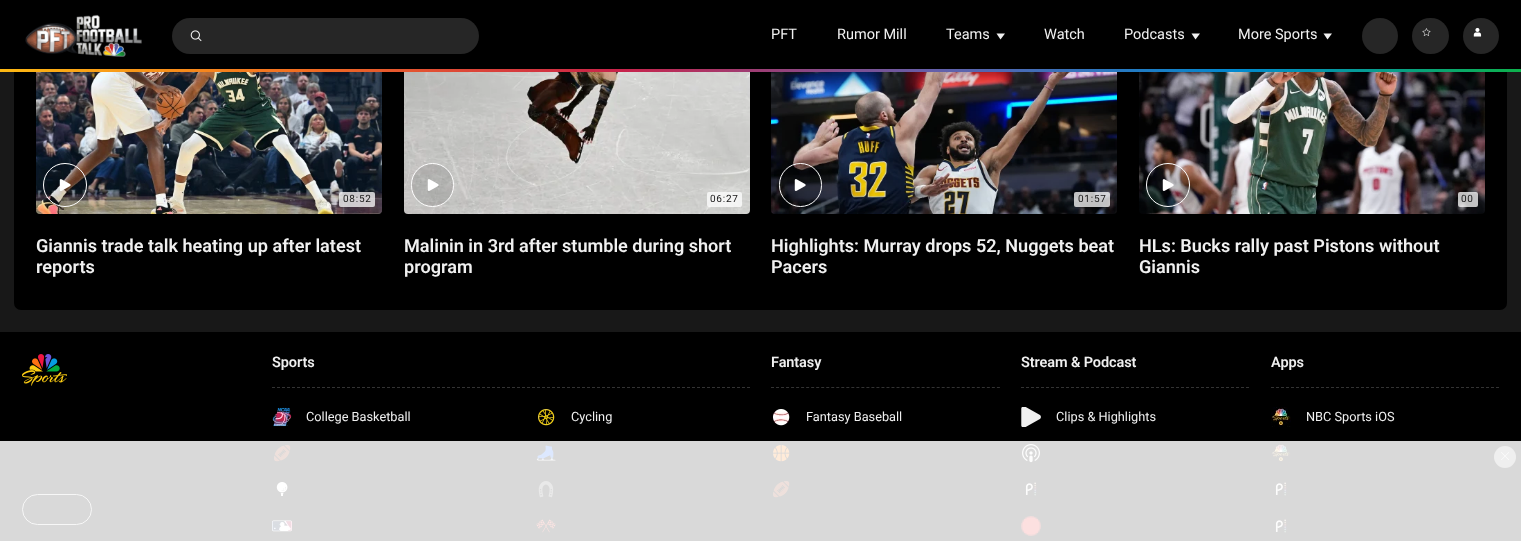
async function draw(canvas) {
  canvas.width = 1521;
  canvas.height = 541;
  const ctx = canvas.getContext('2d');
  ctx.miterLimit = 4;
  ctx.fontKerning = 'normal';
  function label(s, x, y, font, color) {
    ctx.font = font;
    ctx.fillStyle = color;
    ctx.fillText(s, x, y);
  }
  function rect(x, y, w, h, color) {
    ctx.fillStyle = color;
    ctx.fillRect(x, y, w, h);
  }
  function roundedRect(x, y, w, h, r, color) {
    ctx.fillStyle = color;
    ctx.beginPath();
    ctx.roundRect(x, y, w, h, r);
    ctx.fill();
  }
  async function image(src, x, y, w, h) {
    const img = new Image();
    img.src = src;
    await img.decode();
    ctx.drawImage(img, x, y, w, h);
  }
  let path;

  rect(0, 0, 1521, 541, '#181818');
  roundedRect(14, -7, 1493, 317, 7, '#000');
  rect(0, 0, 1521, 69, '#000');
  await image('assets/img1.png', 25, 14, 117, 43);
  roundedRect(172, 18, 307, 36, 18, '#262626');
  await image('assets/img2.png', 190, 30, 12, 12);
  label('PFT', 771, 39, '14.5px Roboto', '#f0f0f0');
  label('Rumor Mill', 837, 39, '14.5px Roboto', '#f0f0f0');
  label('Teams', 946, 39, '14.5px Roboto', '#f0f0f0');
  path = new Path2D('M1000.5 39.5L996.5 33.5H1005Z');
  ctx.fill(path);
  label('Watch', 1044, 39, '14.5px Roboto', '#f0f0f0');
  label('Podcasts', 1124, 39, '14.5px Roboto', '#f0f0f0');
  path = new Path2D('M1195.5 39.5L1191.5 33.5H1200Z');
  ctx.fill(path);
  label('More Sports', 1238, 39, '14.5px Roboto', '#f0f0f0');
  path = new Path2D('M1327.5 39.5L1323.5 33.5H1332Z');
  ctx.fill(path);
  ctx.fillStyle = '#262626';
  ctx.beginPath();
  ctx.arc(1380, 36, 18, 0, 2 * Math.PI);
  ctx.fill();
  roundedRect(1412, 18, 37, 36, 18, '#262626');
  await image('assets/img3.png', 1422, 28, 9, 8);
  ctx.beginPath();
  ctx.arc(1481, 36, 18, 0, 2 * Math.PI);
  ctx.fill();
  await image('assets/img4.png', 1473, 27, 9, 10);
  await image('assets/img5.png', 0, 69, 1521, 3);
  await image('assets/img6.png', 36, 72, 346, 142);
  ctx.fillStyle = '#0000001a';
  ctx.beginPath();
  ctx.arc(65, 185, 21.5, 0, 2 * Math.PI);
  ctx.fill();
  ctx.strokeStyle = '#fff';
  ctx.stroke();
  await image('assets/img7.png', 59, 179, 12, 12);
  roundedRect(339, 192, 36, 15, 2, '#ffffffbf');
  ctx.letterSpacing = '0.75px';
  label('08:52', 343, 202, '10px Roboto', '#181818');
  ctx.letterSpacing = '0px';
  label('Giannis trade talk heating up after latest', 36, 252, '600 18.1px Roboto', '#f0f0f0');
  label('reports', 36, 273, '600 18.1px Roboto', '#f0f0f0');
  await image('assets/img8.png', 404, 72, 346, 142);
  ctx.fillStyle = '#0000001a';
  ctx.beginPath();
  ctx.roundRect(411.5, 163.5, 42, 43, 21);
  ctx.fill();
  ctx.stroke();
  await image('assets/img9.png', 427, 179, 12, 12);
  roundedRect(707, 192, 35, 15, 2, '#ffffffbf');
  ctx.letterSpacing = '0.75px';
  label('06:27', 710, 202, '10px Roboto', '#181818');
  ctx.letterSpacing = '0px';
  label('Malinin in 3rd after stumble during short', 404, 252, '600 18.1px Roboto', '#f0f0f0');
  label('program', 404, 273, '600 18.1px Roboto', '#f0f0f0');
  await image('assets/img10.png', 771, 72, 346, 142);
  ctx.fillStyle = '#0000001a';
  ctx.beginPath();
  ctx.roundRect(779.5, 163.5, 42, 43, 21);
  ctx.fill();
  ctx.stroke();
  await image('assets/img11.png', 794, 179, 12, 12);
  roundedRect(1074, 192, 36, 15, 2, '#ffffffbf');
  ctx.letterSpacing = '0.75px';
  label('01:57', 1078, 202, '10px Roboto', '#181818');
  ctx.letterSpacing = '0px';
  label('Highlights: Murray drops 52, Nuggets beat', 771, 252, '600 18.1px Roboto', '#f0f0f0');
  label('Pacers', 771, 273, '600 18.1px Roboto', '#f0f0f0');
  await image('assets/img12.png', 1139, 72, 346, 142);
  ctx.fillStyle = '#0000001a';
  ctx.beginPath();
  ctx.arc(1168, 185, 21.5, 0, 2 * Math.PI);
  ctx.fill();
  ctx.stroke();
  await image('assets/img13.png', 1162, 179, 12, 12);
  roundedRect(1458, 192, 20, 15, 2, '#ffffffbf');
  ctx.letterSpacing = '0.75px';
  label('00', 1461, 202, '10px Roboto', '#181818');
  ctx.letterSpacing = '0px';
  label('HLs: Bucks rally past Pistons without', 1139, 252, '600 18.1px Roboto', '#f0f0f0');
  label('Giannis', 1139, 273, '600 18.1px Roboto', '#f0f0f0');
  rect(0, 332, 1521, 209, '#000');
  await image('assets/img14.png', 22, 354, 45, 32);
  ctx.beginPath();
  ctx.roundRect(22.5, 494.5, 69, 30, 15);
  ctx.strokeStyle = '#c9c9c9';
  ctx.stroke();
  path = new Path2D('M272 387.5H750');
  ctx.strokeStyle = '#333';
  ctx.setLineDash([3, 2]);
  ctx.stroke(path);
  ctx.letterSpacing = '-0.1px';
  label('Sports', 272, 367, '600 14.5px Roboto', '#f0f0f0');
  await image('assets/img15.png', 272, 407, 20, 20);
  ctx.letterSpacing = '0px';
  label('College Basketball', 306, 421, '12.75px Roboto', '#f0f0f0');
  await image('assets/img16.png', 538, 409, 17, 17);
  label('Cycling', 571, 421, '12.75px Roboto', '#f0f0f0');
  await image('assets/img17.png', 274, 445, 17, 17);
  await image('assets/img18.png', 536, 445, 20, 16);
  await image('assets/img19.png', 276, 482, 12, 14);
  await image('assets/img20.png', 538, 481, 16, 17);
  await image('assets/img21.png', 272, 520, 20, 12);
  await image('assets/img22.png', 536, 519, 20, 14);
  path = new Path2D('M771 387.5H1000');
  ctx.setLineDash([3, 2.02]);
  ctx.stroke(path);
  ctx.letterSpacing = '-0.1px';
  label('Fantasy', 771, 367, '600 14.5px Roboto', '#f0f0f0');
  await image('assets/img23.png', 773, 409, 17, 17);
  ctx.letterSpacing = '0px';
  label('Fantasy Baseball', 806, 421, '12.75px Roboto', '#f0f0f0');
  await image('assets/img24.png', 773, 445, 17, 17);
  await image('assets/img17.png', 773, 481, 17, 17);
  path = new Path2D('M1021 387.5H1249');
  ctx.setLineDash([3, 2]);
  ctx.stroke(path);
  ctx.letterSpacing = '-0.1px';
  label('Stream & Podcast', 1021, 367, '600 14.5px Roboto', '#f0f0f0');
  await image('assets/img25.png', 1021, 407, 20, 20);
  ctx.letterSpacing = '0px';
  label('Clips & Highlights', 1056, 421, '12.75px Roboto', '#f0f0f0');
  await image('assets/img26.png', 1022, 444, 18, 19);
  await image('assets/img27.png', 1025, 479, 13, 20);
  await image('assets/img28.png', 1021, 516, 20, 20);
  path = new Path2D('M1271 387.5H1499');
  ctx.stroke(path);
  ctx.letterSpacing = '-0.1px';
  label('Apps', 1271, 367, '600 14.5px Roboto', '#f0f0f0');
  await image('assets/img29.png', 1271, 407, 20, 20);
  ctx.letterSpacing = '0px';
  label('NBC Sports iOS', 1306, 421, '12.75px Roboto', '#f0f0f0');
  await image('assets/img29.png', 1271, 443, 20, 20);
  await image('assets/img27.png', 1275, 479, 13, 20);
  await image('assets/img27.png', 1275, 516, 13, 20);
  rect(0, 441, 1521, 100, '#ffffffd9');
  ctx.fillStyle = '#efefef';
  ctx.beginPath();
  ctx.arc(1505, 457, 11, 0, 2 * Math.PI);
  ctx.fill();
  await image('assets/img30.png', 1501, 452, 8, 8);
}

draw(document.querySelector('canvas'));
